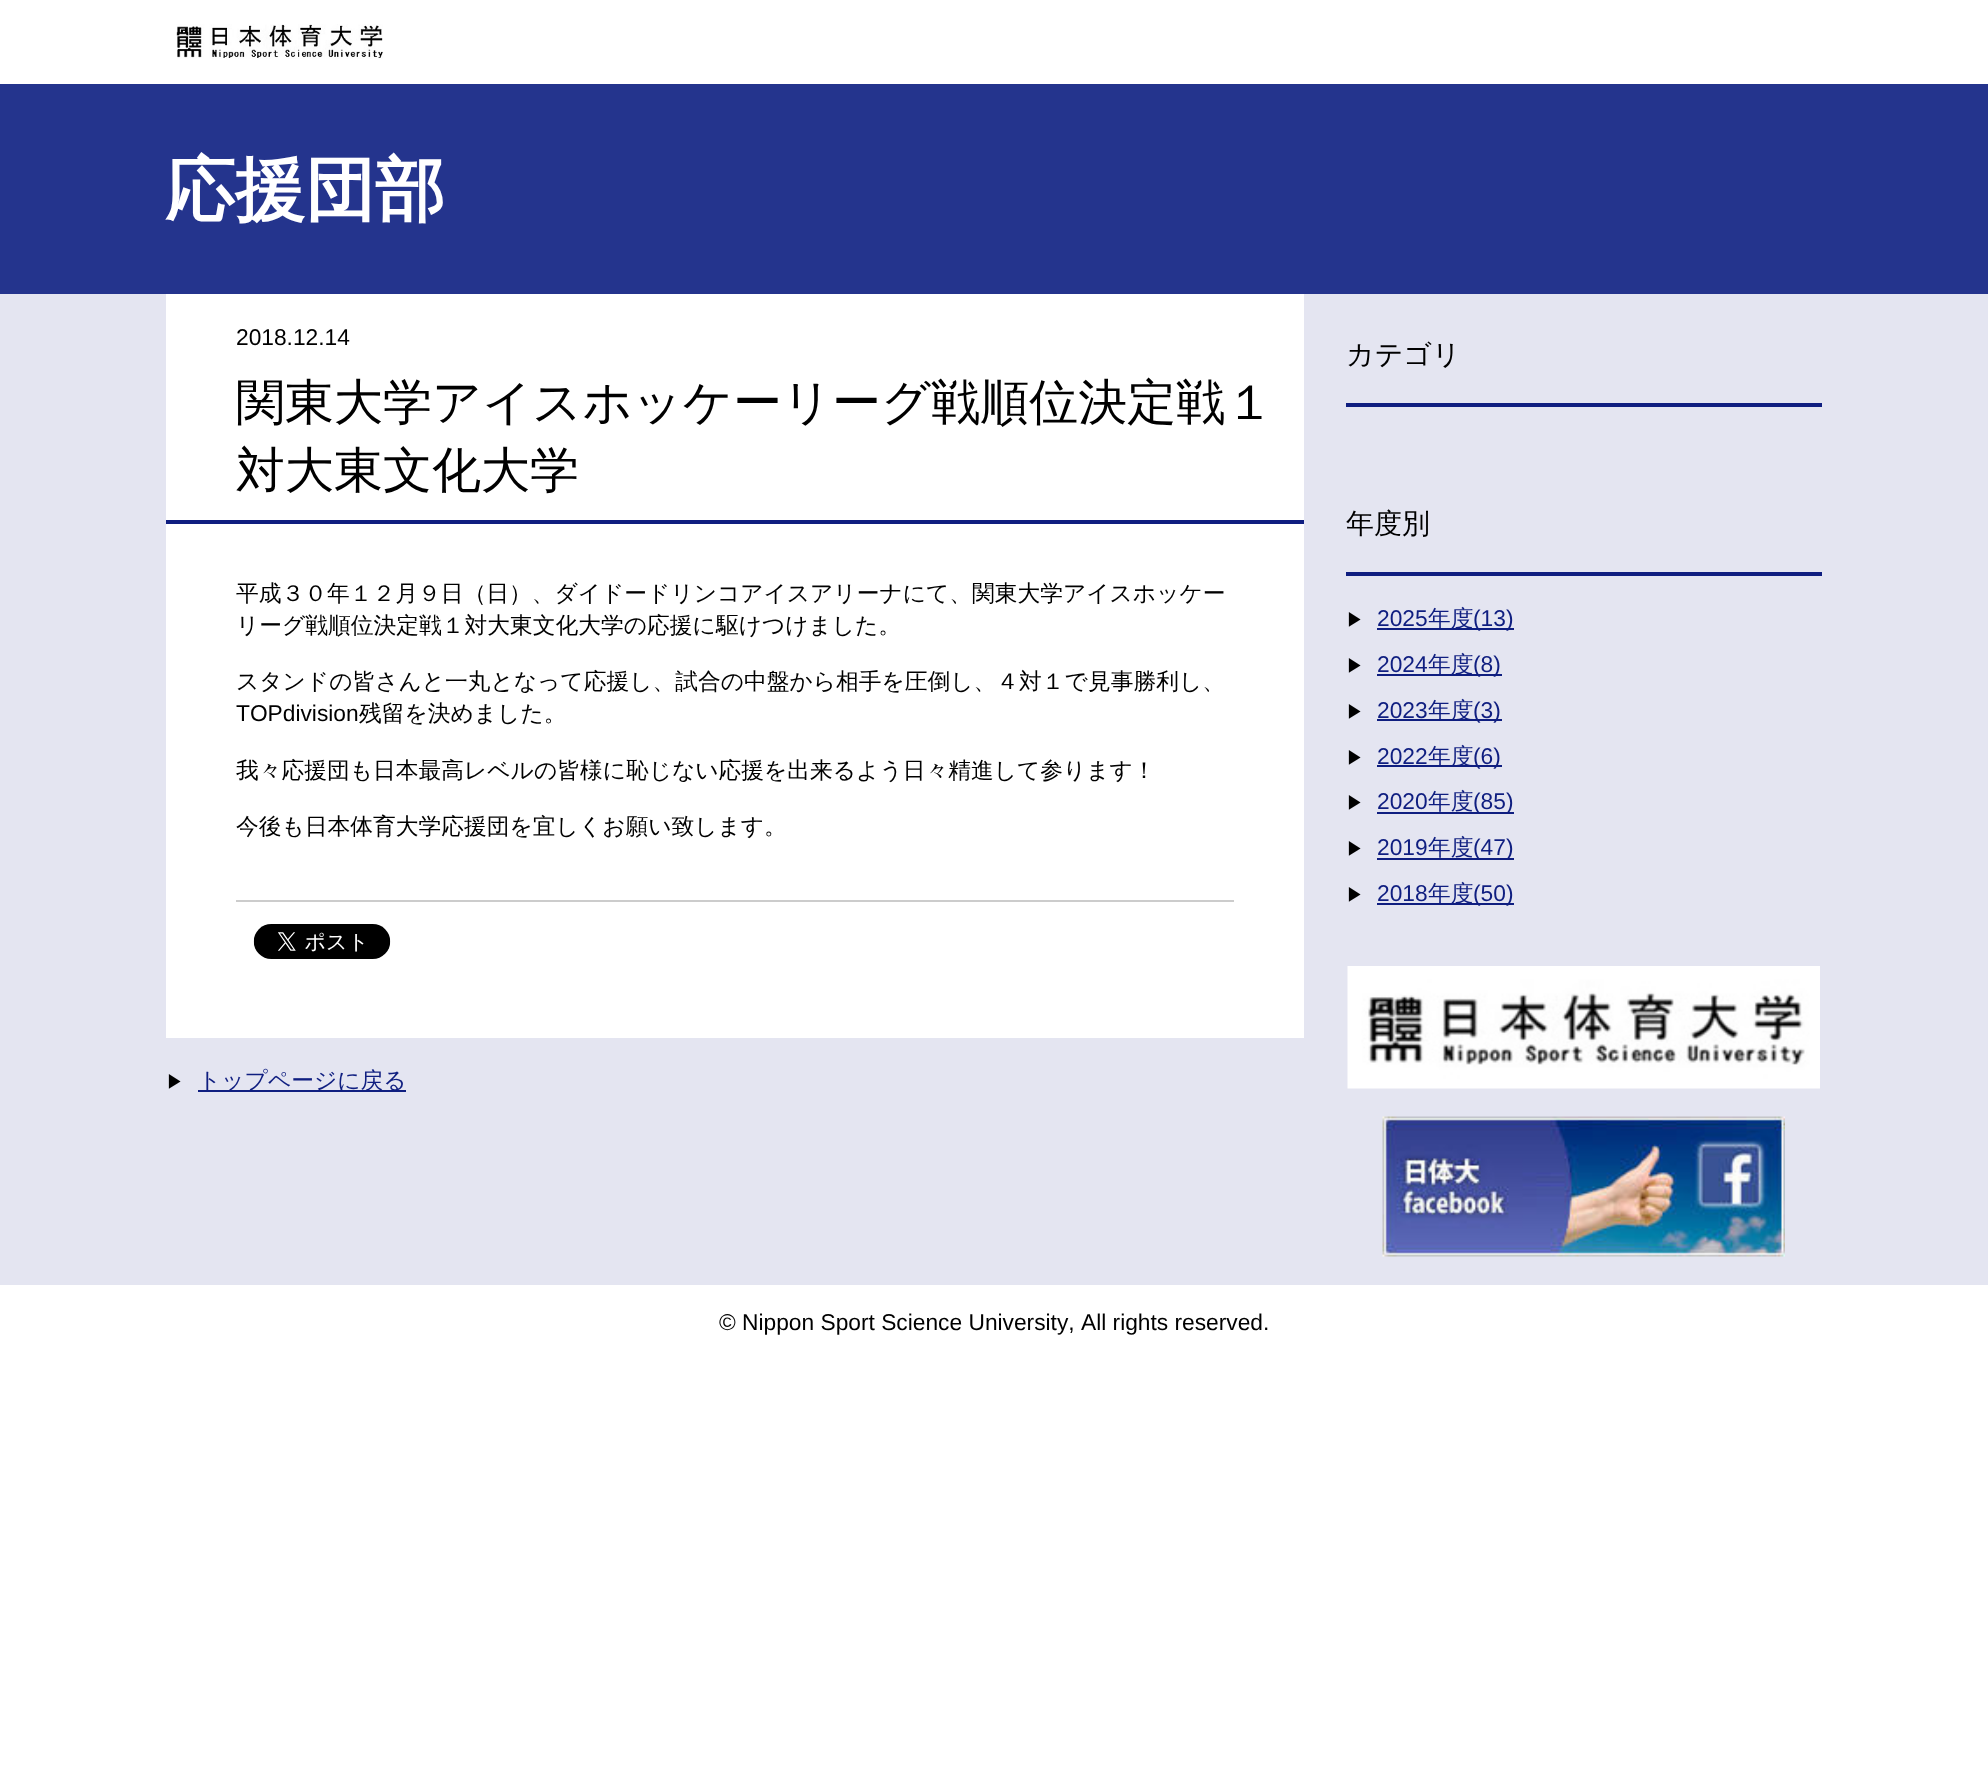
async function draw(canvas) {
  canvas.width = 1988;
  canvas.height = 1767;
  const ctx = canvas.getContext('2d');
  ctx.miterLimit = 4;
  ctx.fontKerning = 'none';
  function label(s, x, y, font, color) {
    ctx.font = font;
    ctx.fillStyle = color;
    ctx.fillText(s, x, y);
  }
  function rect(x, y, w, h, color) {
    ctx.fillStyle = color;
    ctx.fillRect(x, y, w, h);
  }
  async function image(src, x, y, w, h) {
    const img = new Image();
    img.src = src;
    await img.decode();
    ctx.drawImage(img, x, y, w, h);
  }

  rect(0, 0, 1988, 1767, '#fff');
  await image('assets/img1.png', 176, 24, 208, 35);
  rect(0, 84, 1988, 210, '#24348d');
  label('応援団部', 165, 214, 'bold 70px WenQuanYi Zen Hei', '#fff');
  rect(0, 294, 1988, 991, '#e4e5f1');
  rect(166, 294, 1138, 744, '#fff');
  label('2018.12.14', 236, 345, '22.75px Liberation Sans', '#000');
  rect(166, 520, 1138, 4, '#0f1e80');
  label('関東大学アイスホッケーリーグ戦順位決定戦１', 236, 419, '500 49px WenQuanYi Zen Hei', '#000');
  label('対大東文化大学', 236, 487, '500 49px WenQuanYi Zen Hei', '#000');
  label('平成３０年１２月９日（日）、ダイドードリンコアイスアリーナにて、関東大学アイスホッケー', 236, 601, '500 22.75px WenQuanYi Zen Hei', '#000');
  label('リーグ戦順位決定戦１対大東文化大学の応援に駆けつけました。', 236, 633, '500 22.75px WenQuanYi Zen Hei', '#000');
  label('スタンドの皆さんと一丸となって応援し、試合の中盤から相手を圧倒し、４対１で見事勝利し、', 236, 689, '500 22.75px WenQuanYi Zen Hei', '#000');
  label('TOPdivision', 236, 721, '22.75px Liberation Sans', '#000');
  label('残留を決めました。', 359, 721, '500 22.75px WenQuanYi Zen Hei', '#000');
  label('我々応援団も日本最高レベルの皆様に恥じない応援を出来るよう日々精進して参ります！', 236, 778, '500 22.75px WenQuanYi Zen Hei', '#000');
  label('今後も日本体育大学応援団を宜しくお願い致します。', 236, 834, '500 22.75px WenQuanYi Zen Hei', '#000');
  rect(236, 900, 998, 2, '#ccc');
  await image('assets/img2.png', 253, 924, 138, 35);
  label('▶︎', 166, 1088, '500 18px WenQuanYi Zen Hei', '#000');
  rect(198, 1090, 208, 2, '#0f1e80');
  label('トップページに戻る', 198, 1088, '500 22.75px WenQuanYi Zen Hei', '#0f1e80');
  rect(1346, 403, 476, 4, '#0f1e80');
  label('カテゴリ', 1346, 364, '500 28px WenQuanYi Zen Hei', '#000');
  rect(1346, 572, 476, 4, '#0f1e80');
  label('年度別', 1346, 533, '500 28px WenQuanYi Zen Hei', '#000');
  label('▶︎', 1346, 626, '500 18px WenQuanYi Zen Hei', '#000');
  label('2025', 1377, 626, '22.75px Liberation Sans', '#0f1e80');
  rect(1377, 628, 137, 2, '#0f1e80');
  label('年度', 1428, 626, '500 22.75px WenQuanYi Zen Hei', '#0f1e80');
  label('(13)', 1473, 626, '22.75px Liberation Sans', '#0f1e80');
  label('▶︎', 1346, 672, '500 18px WenQuanYi Zen Hei', '#000');
  label('2024', 1377, 672, '22.75px Liberation Sans', '#0f1e80');
  rect(1377, 674, 125, 2, '#0f1e80');
  label('年度', 1428, 672, '500 22.75px WenQuanYi Zen Hei', '#0f1e80');
  label('(8)', 1473, 672, '22.75px Liberation Sans', '#0f1e80');
  label('▶︎', 1346, 718, '500 18px WenQuanYi Zen Hei', '#000');
  label('2023', 1377, 718, '22.75px Liberation Sans', '#0f1e80');
  rect(1377, 719, 125, 2, '#0f1e80');
  label('年度', 1428, 718, '500 22.75px WenQuanYi Zen Hei', '#0f1e80');
  label('(3)', 1473, 718, '22.75px Liberation Sans', '#0f1e80');
  label('▶︎', 1346, 764, '500 18px WenQuanYi Zen Hei', '#000');
  label('2022', 1377, 764, '22.75px Liberation Sans', '#0f1e80');
  rect(1377, 765, 125, 2, '#0f1e80');
  label('年度', 1428, 764, '500 22.75px WenQuanYi Zen Hei', '#0f1e80');
  label('(6)', 1473, 764, '22.75px Liberation Sans', '#0f1e80');
  label('▶︎', 1346, 809, '500 18px WenQuanYi Zen Hei', '#000');
  label('2020', 1377, 809, '22.75px Liberation Sans', '#0f1e80');
  label('年度', 1428, 809, '500 22.75px WenQuanYi Zen Hei', '#0f1e80');
  rect(1377, 812, 137, 2, '#0f1e80');
  label('(85)', 1473, 809, '22.75px Liberation Sans', '#0f1e80');
  label('▶︎', 1346, 855, '500 18px WenQuanYi Zen Hei', '#000');
  label('2019', 1377, 855, '22.75px Liberation Sans', '#0f1e80');
  label('年度', 1428, 855, '500 22.75px WenQuanYi Zen Hei', '#0f1e80');
  rect(1377, 858, 137, 2, '#0f1e80');
  label('(47)', 1473, 855, '22.75px Liberation Sans', '#0f1e80');
  label('▶︎', 1346, 901, '500 18px WenQuanYi Zen Hei', '#000');
  label('2018', 1377, 901, '22.75px Liberation Sans', '#0f1e80');
  rect(1377, 903, 137, 2, '#0f1e80');
  label('年度', 1428, 901, '500 22.75px WenQuanYi Zen Hei', '#0f1e80');
  label('(50)', 1473, 901, '22.75px Liberation Sans', '#0f1e80');
  await image('assets/img3.png', 1347, 966, 473, 123);
  await image('assets/img4.png', 1382, 1116, 403, 141);
  label('© Nippon Sport Science University, All rights reserved.', 719, 1330, '22.75px Liberation Sans', '#000');
}

draw(document.querySelector('canvas'));
